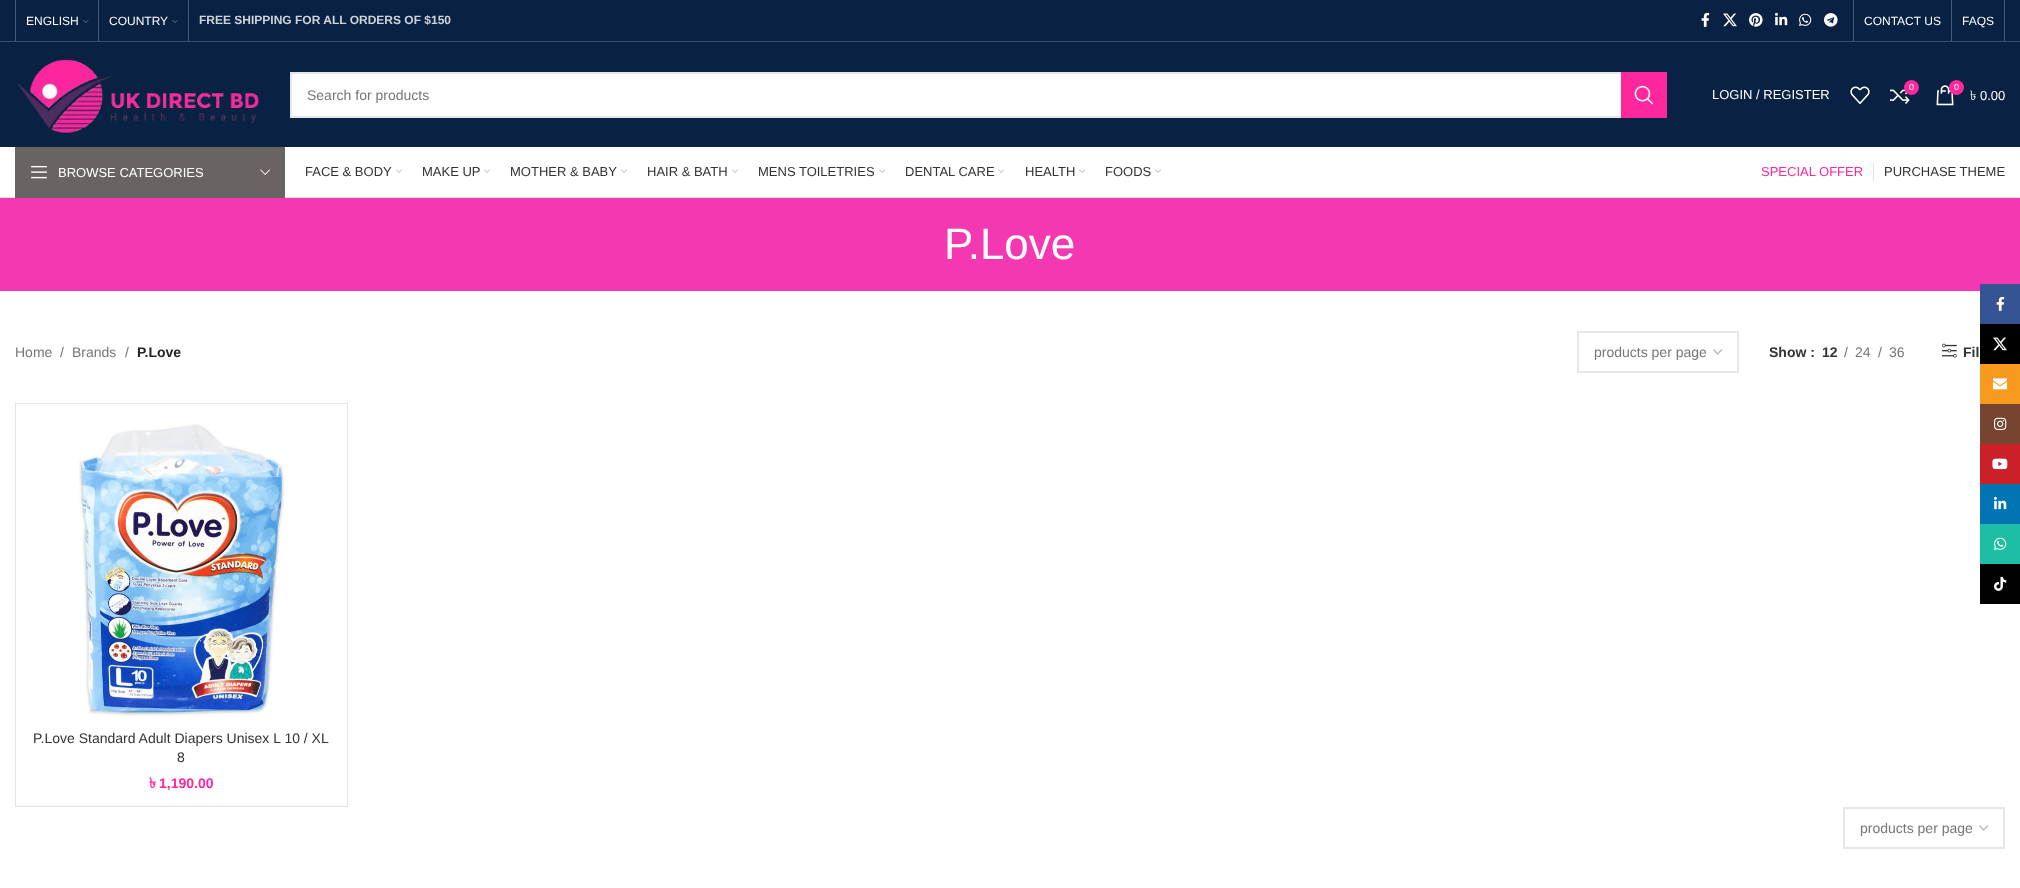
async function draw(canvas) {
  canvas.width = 2020;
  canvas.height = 888;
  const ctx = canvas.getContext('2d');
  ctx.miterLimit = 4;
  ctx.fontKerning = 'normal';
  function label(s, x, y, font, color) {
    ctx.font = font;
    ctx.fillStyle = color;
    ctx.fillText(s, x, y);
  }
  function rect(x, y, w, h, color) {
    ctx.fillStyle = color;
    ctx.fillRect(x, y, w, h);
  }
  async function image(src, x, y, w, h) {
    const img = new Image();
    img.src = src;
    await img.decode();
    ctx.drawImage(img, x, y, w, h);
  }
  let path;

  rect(0, 0, 2020, 888, '#fff');
  rect(0, 0, 2020, 41, '#092143');
  rect(0, 41, 2020, 1, '#3a4d69');
  rect(15, 0, 1, 41, '#475972');
  label('ENGLISH', 26, 25, '12px Liberation Sans', '#fff');
  await image('assets/img1.png', 83, 20, 6, 3);
  rect(98, 0, 1, 41, '#475972');
  label('COUNTRY', 109, 25, '12px Liberation Sans', '#fff');
  await image('assets/img1.png', 172, 20, 6, 3);
  rect(188, 0, 1, 41, '#475972');
  label('FREE SHIPPING FOR ALL ORDERS OF $150', 199, 24, 'bold 12px Liberation Sans', '#ced3d9');
  await image('assets/img2.png', 1701, 12, 9, 15);
  await image('assets/img3.png', 1723, 13, 14, 14);
  await image('assets/img4.png', 1749, 13, 14, 14);
  await image('assets/img5.png', 1775, 12, 13, 14);
  await image('assets/img6.png', 1799, 13, 13, 13);
  await image('assets/img7.png', 1824, 13, 14, 14);
  rect(1853, 0, 1, 41, '#475972');
  label('CONTACT US', 1864, 25, '12px Liberation Sans', '#fff');
  rect(1951, 0, 1, 41, '#475972');
  label('FAQS', 1962, 25, '12px Liberation Sans', '#fff');
  rect(2004, 0, 1, 41, '#475972');
  rect(0, 42, 2020, 105, '#092143');
  await image('assets/img8.png', 17, 59, 242, 74);
  rect(292, 74, 1329, 42, '#fff');
  ctx.strokeStyle = '#e6e6e6';
  ctx.lineWidth = 2;
  ctx.strokeRect(291, 73, 1375, 44);
  label('Search for products', 307, 100, '14px Liberation Sans', '#767676');
  rect(1621, 72, 46, 46, '#fe279e');
  await image('assets/img9.png', 1634, 85, 20, 20);
  label('LOGIN / REGISTER', 1712, 99, '13px Liberation Sans', '#fff');
  await image('assets/img10.png', 1850, 86, 20, 18);
  await image('assets/img11.png', 1890, 89, 20, 15);
  ctx.fillStyle = '#fe279e';
  ctx.beginPath();
  ctx.arc(1911.5, 87.5, 7.5, 0, 2 * Math.PI);
  ctx.fill();
  label('0', 1909, 90, '9px Liberation Sans', '#fff');
  await image('assets/img12.png', 1936, 85, 18, 21);
  ctx.fillStyle = '#fe279e';
  ctx.beginPath();
  ctx.arc(1956.5, 87.5, 7.5, 0, 2 * Math.PI);
  ctx.fill();
  label('0', 1954, 90, '9px Liberation Sans', '#fff');
  label('৳', 1970, 100, '13px Lohit Bengali', '#fff');
  label('0.00', 1980, 100, '13px Liberation Sans', '#fff');
  rect(0, 197, 2020, 1, '#e6e6e6');
  rect(15, 147, 270, 51, '#6a6363');
  await image('assets/img13.png', 31, 165, 16, 14);
  label('BROWSE CATEGORIES', 58, 177, '13px Liberation Sans', '#fff');
  await image('assets/img14.png', 260, 169, 11, 6);
  label('FACE & BODY', 305, 176, '13px Liberation Sans', '#333');
  await image('assets/img15.png', 396, 169, 6, 4);
  label('MAKE UP', 422, 176, '13px Liberation Sans', '#333');
  await image('assets/img15.png', 484, 169, 6, 4);
  label('MOTHER & BABY', 510, 176, '13px Liberation Sans', '#333');
  await image('assets/img15.png', 621, 169, 6, 4);
  label('HAIR & BATH', 647, 176, '13px Liberation Sans', '#333');
  await image('assets/img15.png', 732, 169, 6, 4);
  label('MENS TOILETRIES', 758, 176, '13px Liberation Sans', '#333');
  await image('assets/img15.png', 879, 169, 6, 4);
  label('DENTAL CARE', 905, 176, '13px Liberation Sans', '#333');
  await image('assets/img15.png', 998, 169, 6, 4);
  label('HEALTH', 1025, 176, '13px Liberation Sans', '#333');
  await image('assets/img15.png', 1079, 169, 6, 4);
  label('FOODS', 1105, 176, '13px Liberation Sans', '#333');
  await image('assets/img15.png', 1155, 169, 6, 4);
  label('SPECIAL OFFER', 1761, 176, '13px Liberation Sans', '#fe279e');
  rect(1873, 163, 1, 18, '#e4e4e4');
  label('PURCHASE THEME', 1884, 176, '13px Liberation Sans', '#333');
  rect(0, 198, 2020, 93, '#f438b2');
  label('P.Love', 944, 259, '44px Liberation Sans', '#fff');
  label('Home', 15, 357, '14px Liberation Sans', '#767676');
  label('/', 60, 357, '14px Liberation Sans', '#767676');
  label('Brands', 72, 357, '14px Liberation Sans', '#767676');
  label('/', 125, 357, '14px Liberation Sans', '#767676');
  label('P.Love', 137, 357, 'bold 14px Liberation Sans', '#242424');
  path = new Path2D('M1713.5 349.5L1717.5 354L1722 349.5');
  ctx.strokeStyle = '#bbb';
  ctx.lineWidth = 1.4;
  ctx.stroke(path);
  ctx.strokeStyle = '#e6e6e6';
  ctx.lineWidth = 2;
  ctx.strokeRect(1578, 332, 160, 40);
  label('products per page', 1594, 357, '14px Liberation Sans', '#767676');
  label('Show :', 1769, 357, 'bold 14px Liberation Sans', '#333');
  label('12', 1822, 357, 'bold 14px Liberation Sans', '#333');
  label('/', 1844, 357, '14px Liberation Sans', '#767676');
  label('24', 1855, 357, '14px Liberation Sans', '#767676');
  label('/', 1878, 357, '14px Liberation Sans', '#767676');
  label('36', 1889, 357, '14px Liberation Sans', '#767676');
  await image('assets/img16.png', 1942, 343, 15, 15);
  label('Fil', 1963, 357, 'bold 14px Liberation Sans', '#333');
  rect(15, 403, 1, 404, '#e4e4e4');
  path = new Path2D('M16 403H348L347 404H16Z');
  ctx.fill(path);
  ctx.fillStyle = '#0000001c';
  path = new Path2D('M348 403V807L347 806V404Z');
  ctx.fill(path);
  path = new Path2D('M348 807H16V806H347Z');
  ctx.fill(path);
  await image('assets/img17.png', 79, 424, 206, 292);
  label('P.Love Standard Adult Diapers Unisex L 10 / XL', 33, 743, '14px Liberation Sans', '#333');
  label('8', 177, 762, '14px Liberation Sans', '#333');
  label('৳', 149, 788, 'bold 14px Lohit Bengali', '#fe279e');
  label('1,190.00', 159, 788, 'bold 14px Liberation Sans', '#fe279e');
  path = new Path2D('M1979.5 825.5L1983.5 830L1988 825.5');
  ctx.strokeStyle = '#bbb';
  ctx.lineWidth = 1.4;
  ctx.stroke(path);
  ctx.strokeStyle = '#e6e6e6';
  ctx.lineWidth = 2;
  ctx.strokeRect(1844, 808, 160, 40);
  label('products per page', 1860, 833, '14px Liberation Sans', '#767676');
  rect(1980, 284, 40, 40, '#365493');
  await image('assets/img18.png', 1996, 296, 9, 15);
  rect(1980, 324, 40, 40, '#000');
  await image('assets/img19.png', 1993, 337, 14, 14);
  rect(1980, 364, 40, 40, '#f89a1e');
  await image('assets/img20.png', 1993, 378, 14, 12);
  rect(1980, 404, 40, 40, '#774430');
  await image('assets/img21.png', 1994, 417, 13, 13);
  rect(1980, 444, 40, 40, '#cb2027');
  await image('assets/img22.png', 1992, 458, 16, 12);
  rect(1980, 484, 40, 40, '#0274b3');
  await image('assets/img23.png', 1994, 496, 13, 14);
  rect(1980, 524, 40, 40, '#1ebea5');
  await image('assets/img24.png', 1994, 537, 13, 13);
  rect(1980, 564, 40, 40, '#010101');
  await image('assets/img25.png', 1994, 576, 13, 15);
}

draw(document.querySelector('canvas'));
